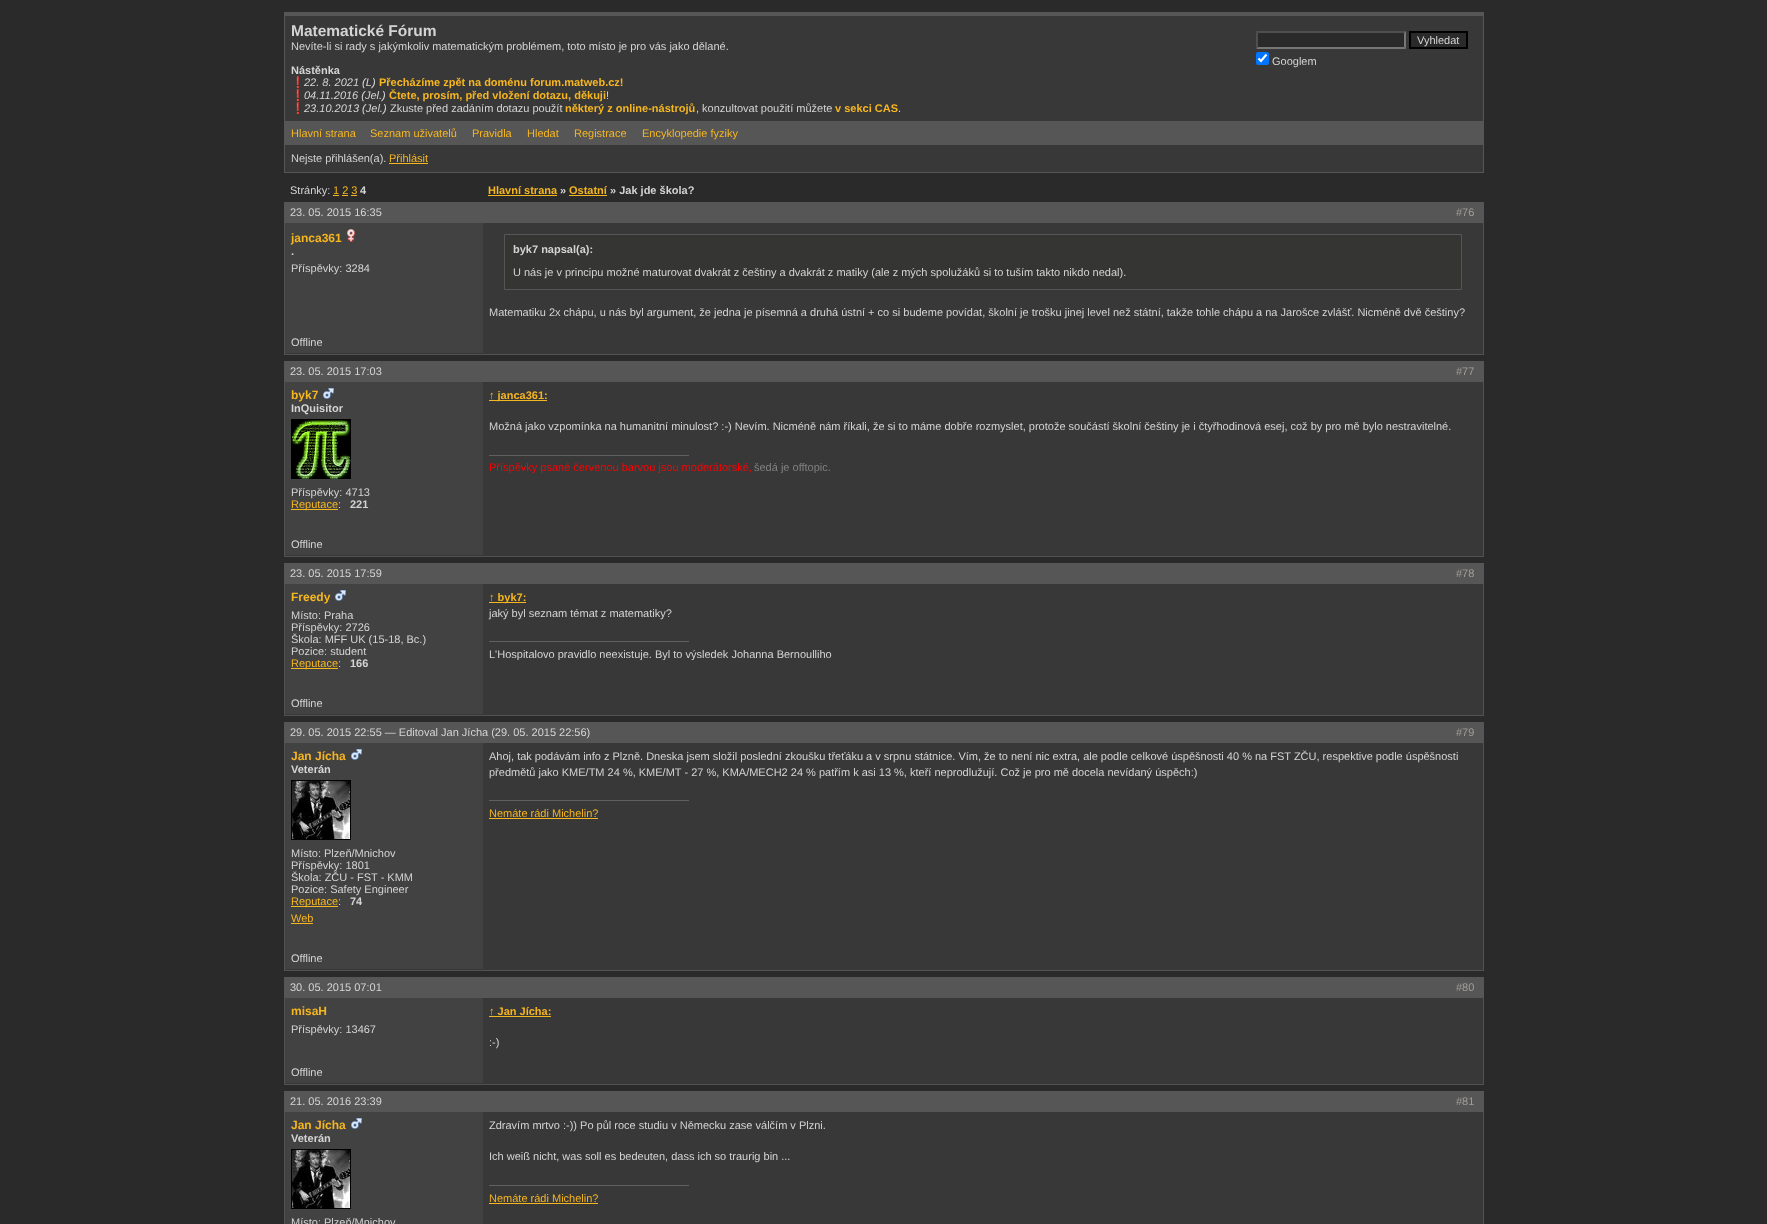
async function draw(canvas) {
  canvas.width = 1767;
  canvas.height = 1224;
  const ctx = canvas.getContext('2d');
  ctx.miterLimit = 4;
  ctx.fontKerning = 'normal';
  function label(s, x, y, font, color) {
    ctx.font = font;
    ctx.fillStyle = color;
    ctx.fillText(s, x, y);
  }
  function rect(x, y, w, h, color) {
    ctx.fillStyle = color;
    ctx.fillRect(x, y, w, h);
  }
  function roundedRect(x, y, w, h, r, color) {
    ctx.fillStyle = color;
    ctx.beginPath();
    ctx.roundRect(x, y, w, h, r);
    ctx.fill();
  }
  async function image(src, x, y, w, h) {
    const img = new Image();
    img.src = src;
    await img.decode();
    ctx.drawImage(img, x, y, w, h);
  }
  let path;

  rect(0, 0, 1767, 1224, '#2a2a2a');
  rect(285, 16, 1198, 156, '#383838');
  rect(284, 12, 1200, 4, '#565656');
  rect(1483, 12, 1, 161, '#565656');
  rect(284, 172, 1200, 1, '#565656');
  rect(284, 12, 1, 161, '#565656');
  label('Matematické Fórum', 291, 36, 'bold 15.5px Liberation Sans', '#d4d4d4');
  label('Nevíte-li si rady s jakýmkoliv matematickým problémem, toto místo je pro vás jako dělané.', 291, 50, '11px Liberation Sans', '#d4d4d4');
  label('Nástěnka', 291, 74, 'bold 11px Liberation Sans', '#d4d4d4');
  label('❗', 291, 86, '11px Noto Color Emoji', '#d4d4d4');
  label('22. 8. 2021 (L)', 304, 86, 'italic 11px Liberation Sans', '#d4d4d4');
  label('Přecházíme zpět na doménu forum.matweb.cz!', 379, 86, 'bold 11px Liberation Sans', '#f6b620');
  label('❗', 291, 99, '11px Noto Color Emoji', '#d4d4d4');
  label('04.11.2016 (Jel.)', 304, 99, 'italic 11px Liberation Sans', '#d4d4d4');
  label('Čtete, prosím, před vložení dotazu, děkuji', 389, 99, 'bold 11px Liberation Sans', '#f6b620');
  label('!', 606, 99, '11px Liberation Sans', '#d4d4d4');
  label('❗', 291, 112, '11px Noto Color Emoji', '#d4d4d4');
  label('23.10.2013 (Jel.)', 304, 112, 'italic 11px Liberation Sans', '#d4d4d4');
  label('Zkuste před zadáním dotazu použít', 390, 112, '11px Liberation Sans', '#d4d4d4');
  label('některý z online-nástrojů', 565, 112, 'bold 11px Liberation Sans', '#f6b620');
  label(', konzultovat použití můžete', 696, 112, '11px Liberation Sans', '#d4d4d4');
  label('v sekci CAS', 835, 112, 'bold 11px Liberation Sans', '#f6b620');
  label('.', 898, 112, '11px Liberation Sans', '#d4d4d4');
  rect(1256, 31, 150, 18, '#2a2a2a');
  ctx.fillStyle = '#4f4f4f';
  path = new Path2D('M1256 31H1406L1404 33H1258Z');
  ctx.fill(path);
  ctx.fillStyle = '#767676';
  path = new Path2D('M1406 31V49L1404 47V33Z');
  ctx.fill(path);
  path = new Path2D('M1406 49H1256L1258 47H1404Z');
  ctx.fill(path);
  ctx.fillStyle = '#4f4f4f';
  path = new Path2D('M1256 49V31L1258 33V47Z');
  ctx.fill(path);
  ctx.fillStyle = '#2a2a2a';
  ctx.beginPath();
  ctx.rect(1410, 32, 57, 16);
  ctx.fill();
  ctx.strokeStyle = '#000';
  ctx.lineWidth = 2;
  ctx.stroke();
  label('Vyhledat', 1417, 44, '11px Liberation Sans', '#d4d4d4');
  roundedRect(1256, 52, 13, 13, 2, '#0075ff');
  path = new Path2D('M1258.5 58.5L1261 61L1266.5 54.5');
  ctx.strokeStyle = '#fff';
  ctx.lineWidth = 2.1;
  ctx.stroke(path);
  label('Googlem', 1272, 65, '11px Liberation Sans', '#d4d4d4');
  rect(285, 121, 1198, 24, '#565656');
  label('Hlavní strana', 291, 137, '11px Liberation Sans', '#f6b620');
  label('Seznam uživatelů', 370, 137, '11px Liberation Sans', '#f6b620');
  label('Pravidla', 472, 137, '11px Liberation Sans', '#f6b620');
  label('Hledat', 527, 137, '11px Liberation Sans', '#f6b620');
  label('Registrace', 574, 137, '11px Liberation Sans', '#f6b620');
  label('Encyklopedie fyziky', 642, 137, '11px Liberation Sans', '#f6b620');
  label('Nejste přihlášen(a).', 291, 162, '11px Liberation Sans', '#d4d4d4');
  label('Přihlásit', 389, 162, '11px Liberation Sans', '#f6b620');
  rect(389, 163, 39, 1, '#f6b620');
  label('Stránky:', 290, 194, '11px Liberation Sans', '#d4d4d4');
  label('1 2 3', 333, 194, '11px Liberation Sans', '#f6b620');
  rect(333, 195, 6, 1, '#f6b620');
  label('4', 360, 194, 'bold 11px Liberation Sans', '#d4d4d4');
  rect(342, 195, 6, 1, '#f6b620');
  rect(351, 195, 6, 1, '#f6b620');
  label('Hlavní strana', 488, 194, 'bold 11px Liberation Sans', '#f6b620');
  rect(488, 195, 69, 1, '#f6b620');
  label('»', 560, 194, 'bold 11px Liberation Sans', '#d4d4d4');
  label('Ostatní', 569, 194, 'bold 11px Liberation Sans', '#f6b620');
  rect(569, 195, 38, 1, '#f6b620');
  label('» Jak jde škola?', 610, 194, 'bold 11px Liberation Sans', '#d4d4d4');
  rect(285, 223, 1198, 131, '#383838');
  rect(284, 202, 1200, 21, '#565656');
  label('23. 05. 2015 16:35', 290, 216, '11px Liberation Sans', '#d4d4d4');
  label('#76', 1456, 216, '11px Liberation Sans', '#a19e96');
  rect(1483, 222, 1, 133, '#525252');
  rect(284, 354, 1200, 1, '#525252');
  rect(284, 222, 1, 133, '#525252');
  rect(285, 223, 198, 130, '#424242');
  label('janca361', 291, 242, 'bold 12px Liberation Sans', '#f6b620');
  await image('assets/img1.png', 347, 229, 8, 13);
  label('.', 291, 255, 'bold 11px Liberation Sans', '#d4d4d4');
  label('Příspěvky: 3284', 291, 272, '11px Liberation Sans', '#d4d4d4');
  ctx.fillStyle = '#353533';
  ctx.beginPath();
  ctx.rect(504.5, 234.5, 957, 55);
  ctx.fill();
  ctx.strokeStyle = '#565656';
  ctx.lineWidth = 1;
  ctx.stroke();
  label('byk7 napsal(a):', 513, 253, 'bold 11px Liberation Sans', '#d4d4d4');
  label('U nás je v principu možné maturovat dvakrát z češtiny a dvakrát z matiky (ale z mých spolužáků si to tuším takto nikdo nedal).', 513, 276, '11px Liberation Sans', '#d4d4d4');
  label('Matematiku 2x chápu, u nás byl argument, že jedna je písemná a druhá ústní + co si budeme povídat, školní je trošku jinej level než státní, takže tohle chápu a na Jarošce zvlášť. Nicméně dvě češtiny?', 489, 316, '11px Liberation Sans', '#d4d4d4');
  label('Offline', 291, 346, '11px Liberation Sans', '#d4d4d4');
  rect(285, 382, 1198, 174, '#383838');
  rect(284, 361, 1200, 21, '#565656');
  label('23. 05. 2015 17:03', 290, 375, '11px Liberation Sans', '#d4d4d4');
  label('#77', 1456, 375, '11px Liberation Sans', '#a19e96');
  rect(1483, 381, 1, 176, '#525252');
  rect(284, 556, 1200, 1, '#525252');
  rect(284, 381, 1, 176, '#525252');
  rect(285, 382, 198, 173, '#424242');
  label('byk7', 291, 399, 'bold 12px Liberation Sans', '#f6b620');
  await image('assets/img2.png', 323, 388, 11, 11);
  label('InQuisitor', 291, 412, 'bold 11px Liberation Sans', '#d4d4d4');
  await image('assets/img3.png', 291, 419, 60, 60);
  label('Příspěvky: 4713', 291, 496, '11px Liberation Sans', '#d4d4d4');
  rect(291, 509, 47, 1, '#f6b620');
  label('Reputace', 291, 508, '11px Liberation Sans', '#f6b620');
  label(':', 338, 508, '11px Liberation Sans', '#d4d4d4');
  label('221', 350, 508, 'bold 11px Liberation Sans', '#d4d4d4');
  rect(489, 400, 58, 1, '#f6b620');
  label('↑ janca361:', 489, 399, 'bold 11px Liberation Sans', '#f6b620');
  label('Možná jako vzpomínka na humanitní minulost? :-) Nevím. Nicméně nám říkali, že si to máme dobře rozmyslet, protože součástí školní češtiny je i čtyřhodinová esej, což by pro mě bylo nestravitelné.', 489, 430, '11px Liberation Sans', '#d4d4d4');
  rect(489, 455, 200, 1, '#606060');
  ctx.save();
  ctx.beginPath();
  ctx.rect(489, 434, 988, 39);
  ctx.clip();
  label('Příspěvky psané červenou barvou jsou moderátorské,', 489, 471, '11px Liberation Sans', '#f00');
  label('šedá je offtopic.', 754, 471, '11px Liberation Sans', '#808080');
  ctx.restore();
  label('Offline', 291, 548, '11px Liberation Sans', '#d4d4d4');
  rect(285, 584, 1198, 131, '#383838');
  rect(284, 563, 1200, 21, '#565656');
  label('23. 05. 2015 17:59', 290, 577, '11px Liberation Sans', '#d4d4d4');
  label('#78', 1456, 577, '11px Liberation Sans', '#a19e96');
  rect(1483, 583, 1, 133, '#525252');
  rect(284, 715, 1200, 1, '#525252');
  rect(284, 583, 1, 133, '#525252');
  rect(285, 584, 198, 130, '#424242');
  label('Freedy', 291, 601, 'bold 12px Liberation Sans', '#f6b620');
  await image('assets/img2.png', 335, 590, 11, 11);
  label('Místo: Praha', 291, 619, '11px Liberation Sans', '#d4d4d4');
  label('Příspěvky: 2726', 291, 631, '11px Liberation Sans', '#d4d4d4');
  label('Škola: MFF UK (15-18, Bc.)', 291, 643, '11px Liberation Sans', '#d4d4d4');
  label('Pozice: student', 291, 655, '11px Liberation Sans', '#d4d4d4');
  rect(291, 668, 47, 1, '#f6b620');
  label('Reputace', 291, 667, '11px Liberation Sans', '#f6b620');
  label(':', 338, 667, '11px Liberation Sans', '#d4d4d4');
  label('166', 350, 667, 'bold 11px Liberation Sans', '#d4d4d4');
  rect(489, 602, 37, 1, '#f6b620');
  label('↑ byk7:', 489, 601, 'bold 11px Liberation Sans', '#f6b620');
  label('jaký byl seznam témat z matematiky?', 489, 617, '11px Liberation Sans', '#d4d4d4');
  rect(489, 641, 200, 1, '#606060');
  ctx.save();
  ctx.beginPath();
  ctx.rect(489, 621, 988, 39);
  ctx.clip();
  label('L\'Hospitalovo pravidlo neexistuje. Byl to výsledek Johanna Bernoulliho', 489, 658, '11px Liberation Sans', '#d4d4d4');
  ctx.restore();
  label('Offline', 291, 707, '11px Liberation Sans', '#d4d4d4');
  rect(285, 743, 1198, 227, '#383838');
  rect(284, 722, 1200, 21, '#565656');
  label('29. 05. 2015 22:55 — Editoval Jan Jícha (29. 05. 2015 22:56)', 290, 736, '11px Liberation Sans', '#d4d4d4');
  label('#79', 1456, 736, '11px Liberation Sans', '#a19e96');
  rect(1483, 742, 1, 229, '#525252');
  rect(284, 970, 1200, 1, '#525252');
  rect(284, 742, 1, 229, '#525252');
  rect(285, 743, 198, 226, '#424242');
  label('Ahoj, tak podávám info z Plzně. Dneska jsem složil poslední zkoušku třeťáku a v srpnu státnice. Vím, že to není nic extra, ale podle celkové úspěšnosti 40 % na FST ZČU, respektive podle úspěšnosti', 489, 760, '11px Liberation Sans', '#d4d4d4');
  label('předmětů jako KME/TM 24 %, KME/MT - 27 %, KMA/MECH2 24 % patřím k asi 13 %, kteří neprodlužují. Což je pro mě docela nevídaný úspěch:)', 489, 776, '11px Liberation Sans', '#d4d4d4');
  rect(489, 800, 200, 1, '#606060');
  label('Nemáte rádi Michelin?', 489, 817, '11px Liberation Sans', '#f6b620');
  rect(489, 818, 109, 1, '#f6b620');
  label('Jan Jícha', 291, 760, 'bold 12px Liberation Sans', '#f6b620');
  await image('assets/img2.png', 351, 749, 11, 11);
  label('Veterán', 291, 773, 'bold 11px Liberation Sans', '#d4d4d4');
  await image('assets/img4.png', 291, 780, 60, 60);
  label('Místo: Plzeň/Mnichov', 291, 857, '11px Liberation Sans', '#d4d4d4');
  label('Příspěvky: 1801', 291, 869, '11px Liberation Sans', '#d4d4d4');
  label('Škola: ZČU - FST - KMM', 291, 881, '11px Liberation Sans', '#d4d4d4');
  label('Pozice: Safety Engineer', 291, 893, '11px Liberation Sans', '#d4d4d4');
  rect(291, 906, 47, 1, '#f6b620');
  label('Reputace', 291, 905, '11px Liberation Sans', '#f6b620');
  label(':', 338, 905, '11px Liberation Sans', '#d4d4d4');
  label('74', 350, 905, 'bold 11px Liberation Sans', '#d4d4d4');
  label('Web', 291, 922, '11px Liberation Sans', '#f6b620');
  rect(291, 923, 22, 1, '#f6b620');
  label('Offline', 291, 962, '11px Liberation Sans', '#d4d4d4');
  rect(285, 998, 1198, 86, '#383838');
  rect(284, 977, 1200, 21, '#565656');
  label('30. 05. 2015 07:01', 290, 991, '11px Liberation Sans', '#d4d4d4');
  label('#80', 1456, 991, '11px Liberation Sans', '#a19e96');
  rect(1483, 997, 1, 88, '#525252');
  rect(284, 1084, 1200, 1, '#525252');
  rect(284, 997, 1, 88, '#525252');
  rect(285, 998, 198, 85, '#424242');
  label('misaH', 291, 1015, 'bold 12px Liberation Sans', '#f6b620');
  label('Příspěvky: 13467', 291, 1033, '11px Liberation Sans', '#d4d4d4');
  label('↑ Jan Jícha:', 489, 1015, 'bold 11px Liberation Sans', '#f6b620');
  rect(489, 1016, 62, 1, '#f6b620');
  label(':-)', 489, 1046, '11px Liberation Sans', '#d4d4d4');
  label('Offline', 291, 1076, '11px Liberation Sans', '#d4d4d4');
  rect(483, 1112, 1000, 112, '#383838');
  rect(284, 1091, 1200, 21, '#565656');
  label('21. 05. 2016 23:39', 290, 1105, '11px Liberation Sans', '#d4d4d4');
  label('#81', 1456, 1105, '11px Liberation Sans', '#a19e96');
  rect(1483, 1111, 1, 113, '#525252');
  rect(284, 1111, 1, 113, '#525252');
  rect(285, 1112, 198, 112, '#424242');
  label('Jan Jícha', 291, 1129, 'bold 12px Liberation Sans', '#f6b620');
  await image('assets/img2.png', 351, 1118, 11, 11);
  label('Veterán', 291, 1142, 'bold 11px Liberation Sans', '#d4d4d4');
  await image('assets/img4.png', 291, 1149, 60, 60);
  label('Místo: Plzeň/Mnichov', 291, 1226, '11px Liberation Sans', '#d4d4d4');
  label('Zdravím mrtvo :-)) Po půl roce studiu v Německu zase válčím v Plzni.', 489, 1129, '11px Liberation Sans', '#d4d4d4');
  label('Ich weiß nicht, was soll es bedeuten, dass ich so traurig bin ...', 489, 1160, '11px Liberation Sans', '#d4d4d4');
  rect(489, 1185, 200, 1, '#606060');
  label('Nemáte rádi Michelin?', 489, 1202, '11px Liberation Sans', '#f6b620');
  rect(489, 1203, 109, 1, '#f6b620');
}

draw(document.querySelector('canvas'));
